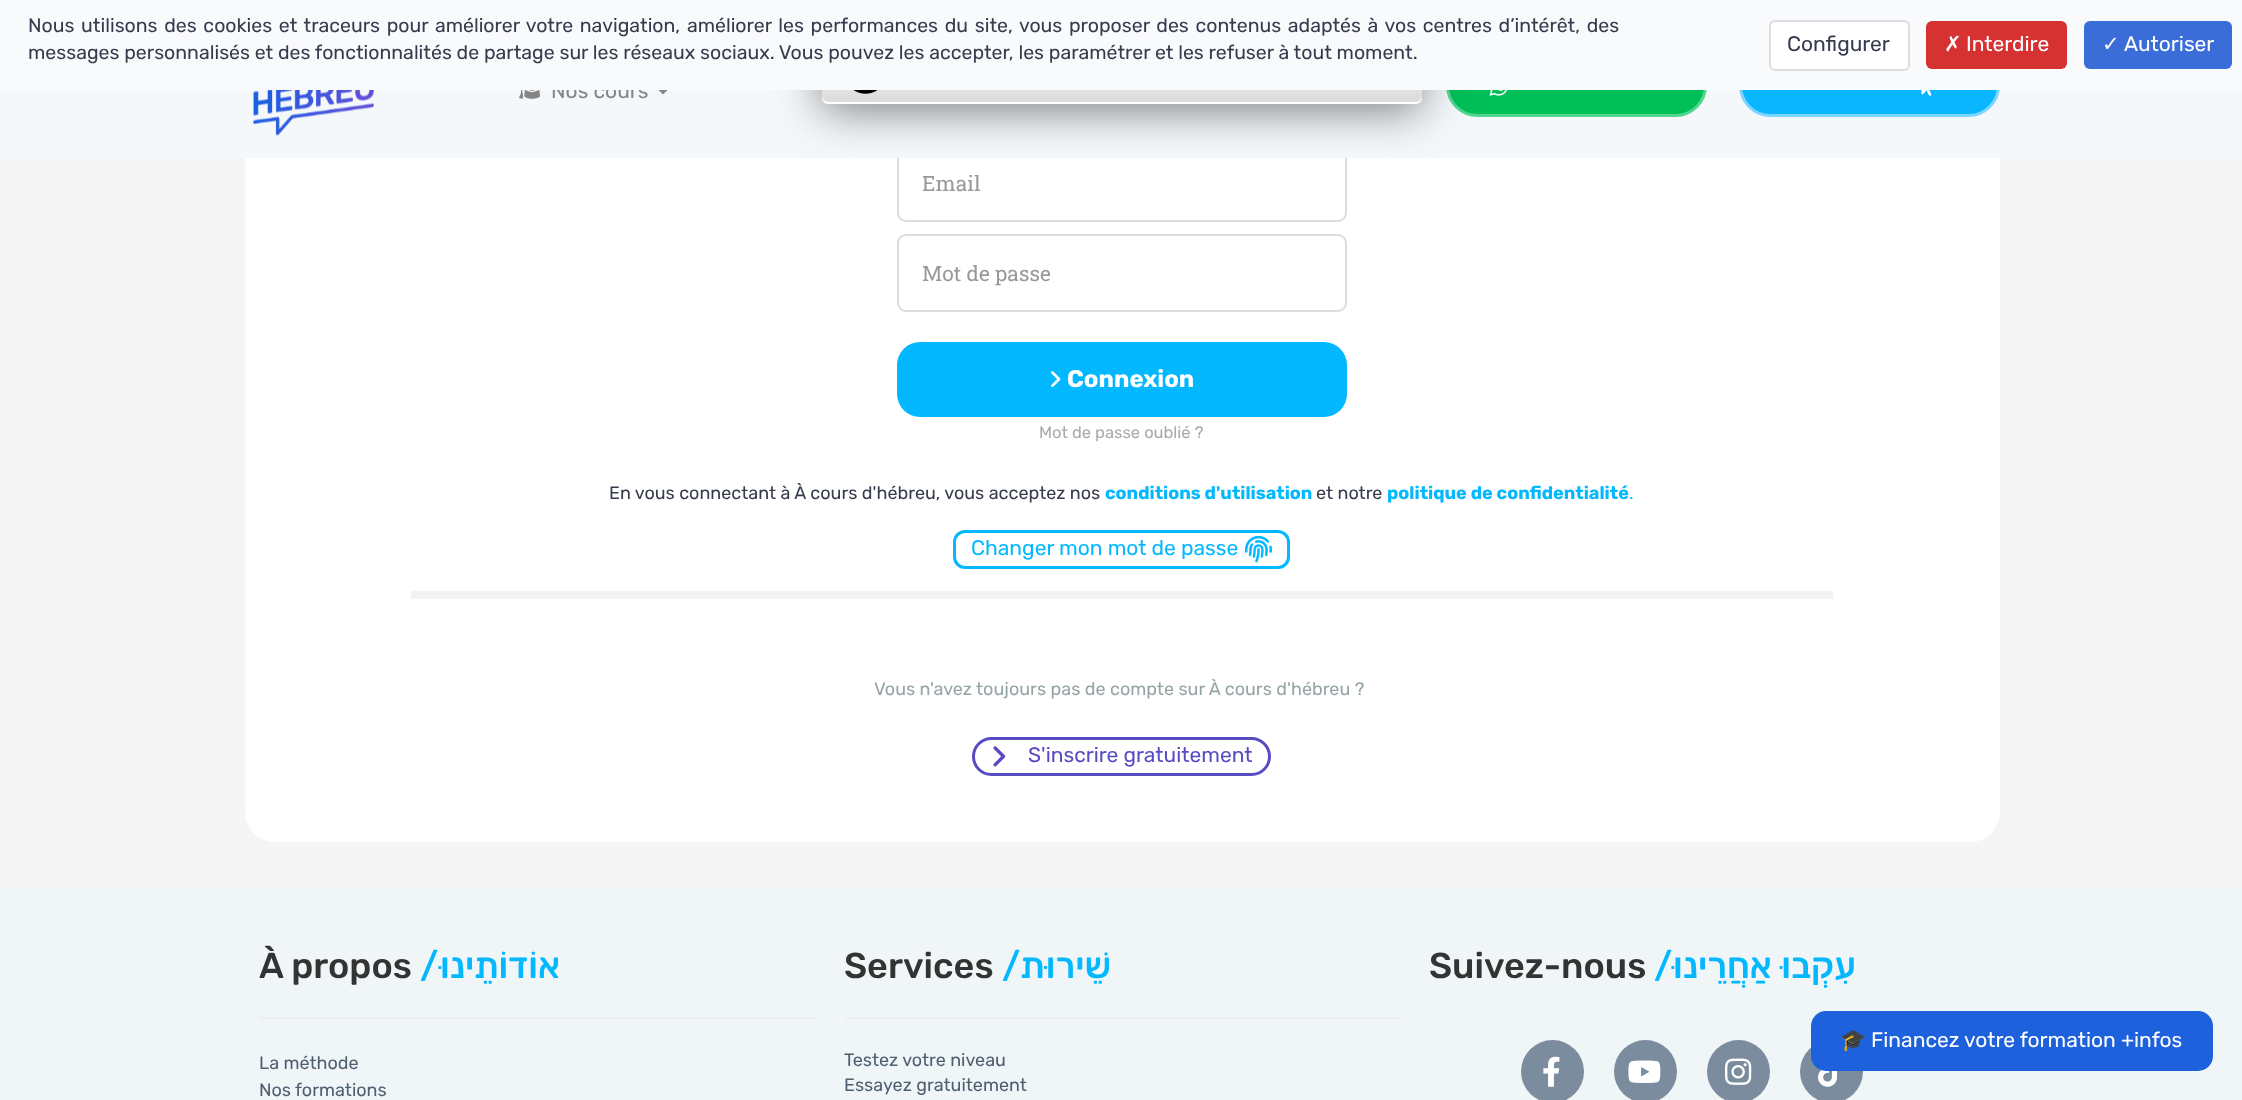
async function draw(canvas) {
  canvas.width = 2242;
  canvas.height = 1100;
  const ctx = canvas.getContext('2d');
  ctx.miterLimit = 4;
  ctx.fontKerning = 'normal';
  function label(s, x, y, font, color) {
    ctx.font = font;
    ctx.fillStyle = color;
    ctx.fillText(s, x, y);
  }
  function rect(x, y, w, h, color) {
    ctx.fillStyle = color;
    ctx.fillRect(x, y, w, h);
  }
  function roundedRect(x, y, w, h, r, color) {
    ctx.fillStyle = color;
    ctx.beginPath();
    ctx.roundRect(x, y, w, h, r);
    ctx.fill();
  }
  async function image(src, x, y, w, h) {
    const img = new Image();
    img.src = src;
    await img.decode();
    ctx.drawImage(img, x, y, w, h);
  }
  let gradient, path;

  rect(0, 0, 2242, 1100, '#f5f5f5');
  roundedRect(245, -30, 1755, 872, 30, '#fff');
  ctx.beginPath();
  ctx.roundRect(898, 145, 448, 76, 8);
  ctx.strokeStyle = '#dddde1';
  ctx.lineWidth = 2;
  ctx.stroke();
  rect(0, 90, 2242, 68, '#f5f8fa');
  ctx.fillStyle = '#00bf56';
  ctx.beginPath();
  ctx.roundRect(1447.5, 55.5, 258, 60, 30);
  ctx.fill();
  ctx.strokeStyle = '#51d68f';
  ctx.lineWidth = 3;
  ctx.stroke();
  await image('assets/img4.png', 1489, 90, 19, 6);
  ctx.fillStyle = '#00000080';
  ctx.filter = 'blur(22.5px)';
  ctx.beginPath();
  ctx.roundRect(822, 36, 600, 74, 6);
  ctx.fill();
  ctx.filter = 'none';
  gradient = ctx.createLinearGradient(1122, 30, 1122, 104);
  gradient.addColorStop(0, '#fff');
  gradient.addColorStop(1, '#dbdbdb');
  ctx.fillStyle = gradient;
  ctx.beginPath();
  ctx.roundRect(822, 30, 600, 74, 6);
  ctx.fill();
  ctx.fillStyle = '#fff';
  path = new Path2D('M822 96V98C822 101 825 104 828 104H1416C1419 104 1422 101 1422 98V96C1422 99 1419 102 1416 102H828C825 102 822 99 822 96Z');
  ctx.fill(path);
  await image('assets/img1.png', 853, 90, 25, 4);
  label('Nos cours', 551, 98, '21px Rubik', '#858585');
  path = new Path2D('M657 88.5H669L663 94.5Z');
  ctx.fill(path);
  ctx.fillStyle = '#0ab6ff';
  ctx.beginPath();
  ctx.roundRect(1740.5, 55.5, 258, 60, 30);
  ctx.fill();
  ctx.strokeStyle = '#7ad5ff';
  ctx.stroke();
  rect(0, 0, 2242, 90, '#f9fafb');
  ctx.wordSpacing = '1.9px';
  label('Nous utilisons des cookies et traceurs pour améliorer votre navigation, améliorer les performances du site, vous proposer des contenus adaptés à vos centres d’intérêt, des', 28, 32, '19.5px Rubik', '#363b4d');
  ctx.wordSpacing = '0px';
  label('messages personnalisés et des fonctionnalités de partage sur les réseaux sociaux. Vous pouvez les accepter, les paramétrer et les refuser à tout moment.', 28, 59, '19.5px Rubik', '#363b4d');
  ctx.fillStyle = '#fff';
  ctx.beginPath();
  ctx.roundRect(1770, 21, 139, 49, 5);
  ctx.fill();
  ctx.strokeStyle = '#dddde1';
  ctx.lineWidth = 2;
  ctx.stroke();
  label('Configurer', 1787, 51, '21px Rubik', '#363b4d');
  roundedRect(1926, 21, 141, 48, 6, '#d63232');
  label('✗', 1944, 51, '21px DejaVu Sans', '#fff');
  label('Interdire', 1966, 51, '21px Rubik', '#fff');
  roundedRect(2084, 21, 148, 48, 6, '#3b6dd9');
  label('✓', 2102, 51, '21px DejaVu Sans', '#fff');
  label('Autoriser', 2124, 51, '21px Rubik', '#fff');
  await image('assets/img2.png', 253, 90, 121, 46);
  await image('assets/img3.png', 519, 90, 21, 9);
  await image('assets/img5.png', 1921, 90, 11, 6);
  ctx.save();
  ctx.beginPath();
  ctx.rect(923, 168, 399, 29);
  ctx.clip();
  label('Email', 922, 191, '21px Roboto Slab', '#999');
  ctx.restore();
  ctx.beginPath();
  ctx.roundRect(898, 235, 448, 76, 8);
  ctx.stroke();
  ctx.save();
  ctx.beginPath();
  ctx.rect(923, 258, 399, 29);
  ctx.clip();
  label('Mot de passe', 922, 281, '21px Roboto Slab', '#999');
  ctx.restore();
  roundedRect(897, 342, 450, 75, 23, '#03b8ff');
  await image('assets/img6.png', 1051, 371, 10, 16);
  label('Connexion', 1067, 387, 'bold 24px Rubik', '#fff');
  label('Mot de passe oublié ?', 1039, 438, '16.5px Rubik', '#aaa');
  label('En vous connectant à À cours d\'hébreu, vous acceptez nos', 609, 499, '18px Rubik', '#363b4d');
  label('conditions d\'utilisation', 1105, 499, 'bold 18px Rubik', '#03b8ff');
  label('et notre', 1316, 499, '18px Rubik', '#363b4d');
  label('politique de confidentialité', 1387, 499, 'bold 18px Rubik', '#03b8ff');
  label('.', 1629, 499, '18px Rubik', '#03b8ff');
  ctx.beginPath();
  ctx.roundRect(954.5, 531.5, 334, 36, 10.5);
  ctx.strokeStyle = '#03b8ff';
  ctx.lineWidth = 3;
  ctx.stroke();
  label('Changer mon mot de passe', 971, 555, '21px Rubik', '#03b8ff');
  await image('assets/img7.png', 1245, 535, 27, 28);
  rect(411, 591, 1422, 8, '#f2f2f2');
  label('Vous n\'avez toujours pas de compte sur À cours d\'hébreu ?', 874, 695, '18px Rubik', '#95a5a6');
  ctx.beginPath();
  ctx.roundRect(973.5, 738.5, 296, 36, 18);
  ctx.strokeStyle = '#594cc3';
  ctx.stroke();
  await image('assets/img8.png', 993, 746, 13, 21);
  label('S\'inscrire gratuitement', 1028, 762, '21px Rubik', '#594cc3');
  rect(0, 887, 2242, 213, '#f0f5f7');
  ctx.wordSpacing = '-1px';
  label('À propos', 259, 978, '500 36px Rubik', '#333');
  ctx.wordSpacing = '0px';
  label('/', 420, 978, '500 36px Rubik', '#03b8ff');
  ctx.direction = 'rtl';
  label('אוֹדוֹתֵינוּ', 560, 978, '500 36px Rubik', '#03b8ff');
  rect(260, 1017, 555, 2, '#eee');
  ctx.direction = 'ltr';
  label('La méthode', 259, 1069, '18px Rubik', '#4e5f70');
  label('Nos formations', 259, 1096, '18px Rubik', '#4e5f70');
  label('Services', 844, 978, '500 36px Rubik', '#333');
  label('/', 1002, 978, '500 36px Rubik', '#03b8ff');
  ctx.direction = 'rtl';
  label('שֵׁירוּת', 1111, 978, '500 36px Rubik', '#03b8ff');
  rect(845, 1017, 555, 2, '#eee');
  ctx.direction = 'ltr';
  label('Testez votre niveau', 844, 1066, '18px Rubik', '#4e5f70');
  label('Essayez gratuitement', 844, 1091, '18px Rubik', '#4e5f70');
  label('Suivez-nous', 1429, 978, '500 36px Rubik', '#333');
  label('/', 1654, 978, '500 36px Rubik', '#03b8ff');
  ctx.direction = 'rtl';
  label('עִקְבוּ אַחֲרֵינוּ', 1856, 978, '500 36px Rubik', '#03b8ff');
  ctx.fillStyle = '#7a8c9e';
  ctx.beginPath();
  ctx.arc(1552.5, 1071.5, 31.5, 0, 2 * Math.PI);
  ctx.fill();
  await image('assets/img9.png', 1543, 1056, 17, 31);
  ctx.beginPath();
  ctx.arc(1645.5, 1071.5, 31.5, 0, 2 * Math.PI);
  ctx.fill();
  await image('assets/img10.png', 1628, 1060, 33, 23);
  ctx.beginPath();
  ctx.arc(1738.5, 1071.5, 31.5, 0, 2 * Math.PI);
  ctx.fill();
  await image('assets/img11.png', 1725, 1058, 27, 27);
  ctx.beginPath();
  ctx.arc(1831.5, 1071.5, 31.5, 0, 2 * Math.PI);
  ctx.fill();
  await image('assets/img12.png', 1818, 1070, 20, 17);
  roundedRect(1811, 1011, 402, 60, 15, '#1d61dc');
  ctx.direction = 'ltr';
  label('🎓', 1840, 1047, '21px Noto Color Emoji', '#fff');
  label('Financez votre formation +infos', 1871, 1047, '21px Rubik', '#fff');
}

draw(document.querySelector('canvas'));
